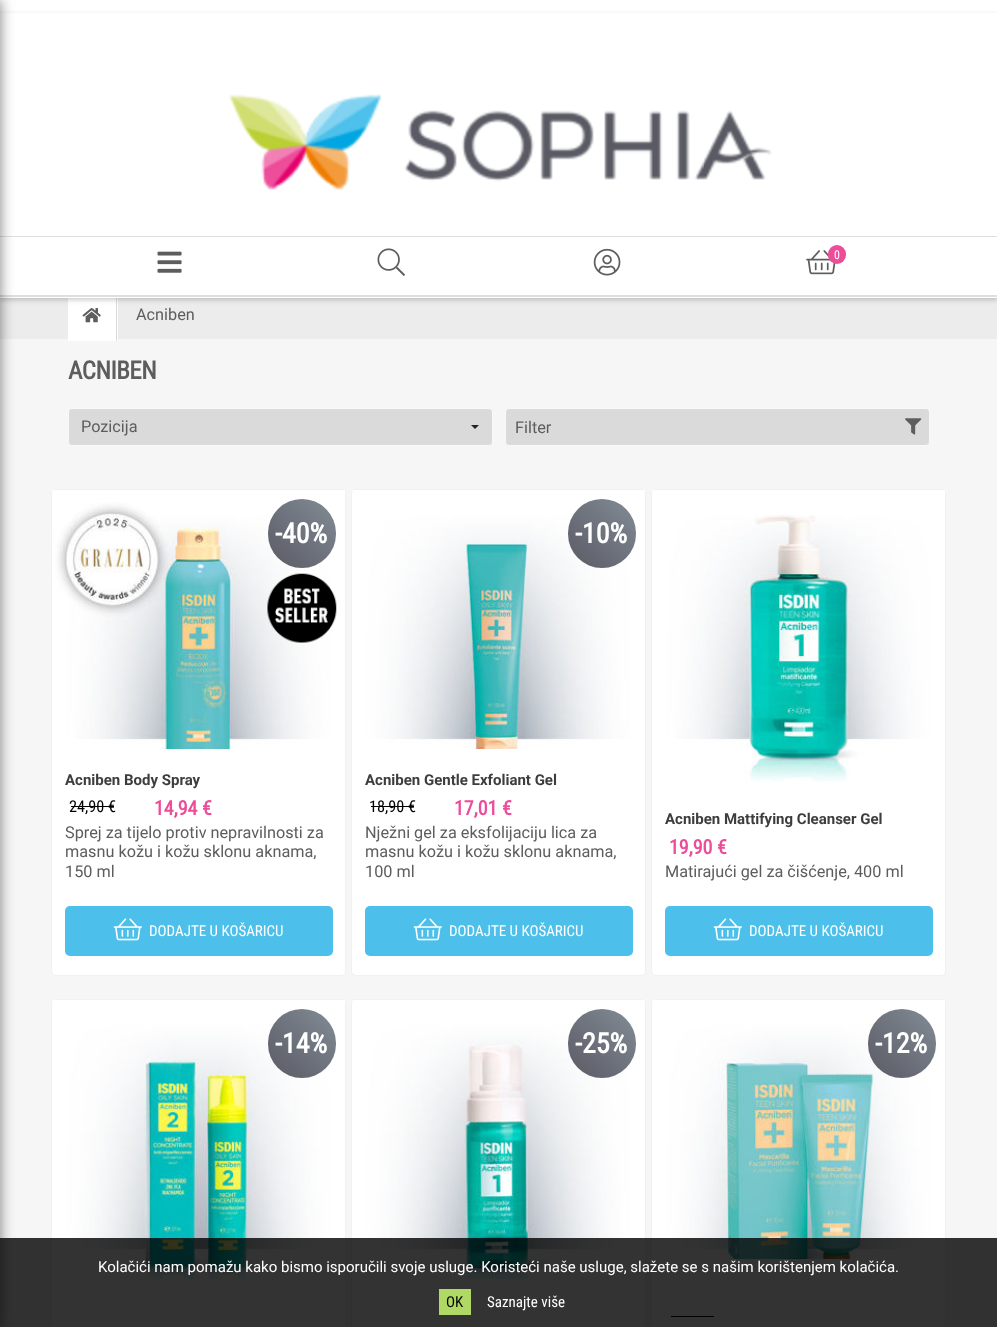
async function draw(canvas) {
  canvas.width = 997;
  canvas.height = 1327;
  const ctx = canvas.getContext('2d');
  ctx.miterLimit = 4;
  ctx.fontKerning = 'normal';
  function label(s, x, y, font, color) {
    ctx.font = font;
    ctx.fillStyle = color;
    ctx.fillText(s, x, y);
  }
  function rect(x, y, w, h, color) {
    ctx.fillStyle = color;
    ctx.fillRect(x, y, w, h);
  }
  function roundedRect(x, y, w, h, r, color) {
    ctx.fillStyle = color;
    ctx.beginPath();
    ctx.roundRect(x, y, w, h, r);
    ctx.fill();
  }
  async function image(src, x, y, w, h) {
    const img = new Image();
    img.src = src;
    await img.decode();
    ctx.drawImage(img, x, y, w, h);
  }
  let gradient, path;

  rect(0, 0, 997, 1327, '#fff');
  rect(0, 298, 997, 41, '#ececec');
  rect(0, 339, 997, 988, '#f6f6f6');
  rect(68, 298, 50, 43, '#fff');
  rect(116, 291, 1, 50, '#dbdbdb');
  await image('assets/img6.png', 82, 308, 19, 15);
  ctx.fillStyle = '#00000033';
  ctx.filter = 'blur(2.5px)';
  ctx.beginPath();
  ctx.rect(0, 15, 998, 285);
  ctx.fill();
  ctx.filter = 'none';
  rect(0, 13, 997, 285, '#fff');
  rect(0, 236, 997, 1, '#dfdfdf');
  rect(0, 295, 997, 2, '#dfdfdf');
  ctx.fillStyle = '#00000080';
  ctx.filter = 'blur(7px)';
  ctx.beginPath();
  ctx.rect(-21, 0, 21, 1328);
  ctx.fill();
  ctx.filter = 'none';
  await image('assets/img1.png', 228, 94, 544, 96);
  await image('assets/img2.png', 157, 251, 25, 22);
  await image('assets/img3.png', 377, 248, 28, 28);
  await image('assets/img4.png', 593, 248, 28, 28);
  await image('assets/img5.png', 806, 250, 30, 25);
  roundedRect(828, 245, 18, 19, 9, '#ed4c99');
  label('0', 834, 259, '12px Roboto Condensed', '#fff');
  label('Acniben', 136, 320, '16.25px Roboto', '#5d5d5d');
  ctx.letterSpacing = '-0.5px';
  label('ACNIBEN', 68, 379, 'bold 25px Roboto Condensed', '#5d5d5d');
  ctx.fillStyle = '#dadada';
  ctx.beginPath();
  ctx.roundRect(68.5, 408.5, 424, 37, 3.5);
  ctx.fill();
  ctx.strokeStyle = '#f8f9fa';
  ctx.stroke();
  ctx.letterSpacing = '0px';
  label('Pozicija', 81, 432, '16.25px Roboto', '#5d5d5d');
  ctx.fillStyle = '#212529';
  path = new Path2D('M471 425H479L475 429Z');
  ctx.fill(path);
  ctx.fillStyle = '#dadada';
  ctx.beginPath();
  ctx.roundRect(505.5, 408.5, 424, 37, 3.5);
  ctx.fill();
  ctx.stroke();
  label('Filter', 515, 433, '16.25px Roboto', '#5d5d5d');
  await image('assets/img7.png', 905, 418, 17, 17);
  ctx.fillStyle = '#fff';
  ctx.beginPath();
  ctx.roundRect(51.5, 489.5, 294, 486, 4.5);
  ctx.fill();
  ctx.strokeStyle = '#f1f1f1';
  ctx.stroke();
  await image('assets/img8.png', 52, 490, 293, 290);
  gradient = ctx.createLinearGradient(268, 568, 336, 499);
  gradient.addColorStop(0, '#5a5a64');
  gradient.addColorStop(1, '#828c96');
  ctx.fillStyle = gradient;
  ctx.beginPath();
  ctx.roundRect(268, 499, 68, 69, 34);
  ctx.fill();
  label('-40%', 275, 543, 'bold 28px Roboto Condensed', '#fff');
  await image('assets/img9.png', 267, 573, 70, 70);
  ctx.beginPath();
  ctx.roundRect(53, 749, 292, 207, [0, 0, 6, 6]);
  ctx.fill();
  label('Acniben Body Spray', 65, 785, 'bold 15px Roboto', '#3d3d3d');
  label('24,90 €', 69, 812, '16.25px Roboto Condensed', '#000');
  rect(71, 806, 43, 1, '#000');
  label('14,94 €', 154, 815, 'bold 20px Roboto Condensed', '#ed4c99');
  label('Sprej za tijelo protiv nepravilnosti za', 65, 838, '16.25px Roboto', '#5d5d5d');
  label('masnu kožu i kožu sklonu aknama,', 65, 857, '16.25px Roboto', '#5d5d5d');
  label('150 ml', 65, 877, '16.25px Roboto', '#5d5d5d');
  roundedRect(65, 906, 268, 50, 5, '#4cc0ea');
  await image('assets/img10.png', 113, 918, 29, 23);
  label('DODAJTE U KOŠARICU', 149, 936, '15px Roboto Condensed', '#fff');
  ctx.beginPath();
  ctx.roundRect(351.5, 489.5, 294, 486, 4.5);
  ctx.fill();
  ctx.stroke();
  await image('assets/img11.png', 352, 490, 293, 283);
  gradient = ctx.createLinearGradient(568, 568, 636, 499);
  gradient.addColorStop(0, '#5a5a64');
  gradient.addColorStop(1, '#828c96');
  ctx.fillStyle = gradient;
  ctx.beginPath();
  ctx.roundRect(568, 499, 68, 69, 34);
  ctx.fill();
  label('-10%', 575, 543, 'bold 28px Roboto Condensed', '#fff');
  ctx.beginPath();
  ctx.roundRect(353, 749, 292, 207, [0, 0, 6, 6]);
  ctx.fill();
  label('Acniben Gentle Exfoliant Gel', 365, 785, 'bold 15px Roboto', '#3d3d3d');
  label('18,90 €', 369, 812, '16.25px Roboto Condensed', '#000');
  rect(371, 806, 43, 1, '#000');
  label('17,01 €', 454, 815, 'bold 20px Roboto Condensed', '#ed4c99');
  label('Nježni gel za eksfolijaciju lica za', 365, 838, '16.25px Roboto', '#5d5d5d');
  label('masnu kožu i kožu sklonu aknama,', 365, 857, '16.25px Roboto', '#5d5d5d');
  label('100 ml', 365, 877, '16.25px Roboto', '#5d5d5d');
  roundedRect(365, 906, 268, 50, 5, '#4cc0ea');
  await image('assets/img10.png', 413, 918, 29, 23);
  label('DODAJTE U KOŠARICU', 449, 936, '15px Roboto Condensed', '#fff');
  ctx.beginPath();
  ctx.roundRect(651.5, 489.5, 294, 486, 4.5);
  ctx.fill();
  ctx.stroke();
  await image('assets/img12.png', 652, 490, 293, 292);
  label('Acniben Mattifying Cleanser Gel', 665, 824, 'bold 15px Roboto', '#3d3d3d');
  label('19,90 €', 669, 854, 'bold 20px Roboto Condensed', '#ed4c99');
  label('Matirajući gel za čišćenje, 400 ml', 665, 877, '16.25px Roboto', '#5d5d5d');
  roundedRect(665, 906, 268, 50, 5, '#4cc0ea');
  await image('assets/img10.png', 713, 918, 29, 23);
  label('DODAJTE U KOŠARICU', 749, 936, '15px Roboto Condensed', '#fff');
  ctx.beginPath();
  ctx.roundRect(51.5, 999.5, 294, 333, 4.5);
  ctx.fill();
  ctx.stroke();
  await image('assets/img13.png', 52, 1000, 293, 283);
  gradient = ctx.createLinearGradient(268, 1078, 336, 1009);
  gradient.addColorStop(0, '#5a5a64');
  gradient.addColorStop(1, '#828c96');
  ctx.fillStyle = gradient;
  ctx.beginPath();
  ctx.roundRect(268, 1009, 68, 69, 34);
  ctx.fill();
  label('-14%', 275, 1053, 'bold 28px Roboto Condensed', '#fff');
  rect(144, 1279, 104, 4, '#fff');
  ctx.beginPath();
  ctx.roundRect(351.5, 999.5, 294, 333, 4.5);
  ctx.fill();
  ctx.stroke();
  await image('assets/img14.png', 352, 1000, 293, 286);
  gradient = ctx.createLinearGradient(568, 1078, 636, 1009);
  gradient.addColorStop(0, '#5a5a64');
  gradient.addColorStop(1, '#828c96');
  ctx.fillStyle = gradient;
  ctx.beginPath();
  ctx.roundRect(568, 1009, 68, 69, 34);
  ctx.fill();
  label('-25%', 575, 1053, 'bold 28px Roboto Condensed', '#fff');
  rect(465, 1279, 64, 7, '#fff');
  ctx.beginPath();
  ctx.roundRect(651.5, 999.5, 294, 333, 4.5);
  ctx.fill();
  ctx.stroke();
  await image('assets/img15.png', 652, 1000, 293, 274);
  gradient = ctx.createLinearGradient(868, 1078, 936, 1009);
  gradient.addColorStop(0, '#5a5a64');
  gradient.addColorStop(1, '#828c96');
  ctx.fillStyle = gradient;
  ctx.beginPath();
  ctx.roundRect(868, 1009, 68, 69, 34);
  ctx.fill();
  label('-12%', 875, 1053, 'bold 28px Roboto Condensed', '#fff');
  rect(727, 1259, 149, 15, '#fff');
  rect(671, 1316, 43, 1, '#000');
  rect(0, 1238, 997, 89, '#000000cc');
  label('Kolačići nam pomažu kako bismo isporučili svoje usluge. Koristeći naše usluge, slažete se s našim korištenjem kolačića.', 98, 1272, '15px Roboto', '#fff');
  rect(439, 1289, 32, 26, '#b0d865');
  label('OK', 446, 1307, '15px Roboto Condensed', '#000');
  label('Saznajte više', 487, 1307, '15px Roboto Condensed', '#fff');
}

draw(document.querySelector('canvas'));
